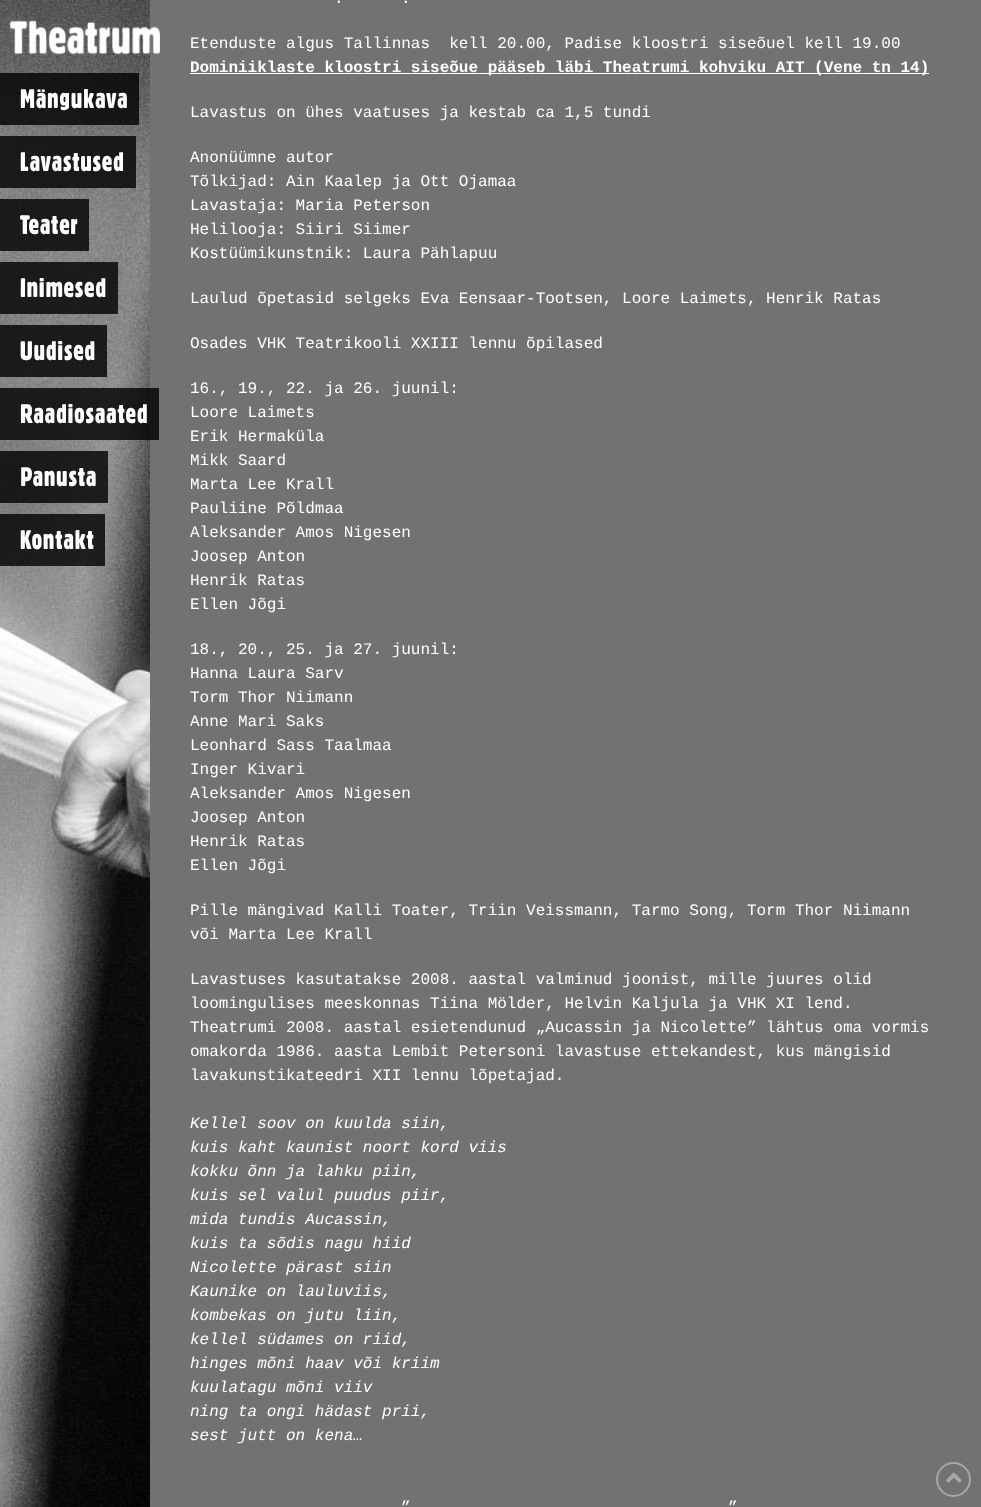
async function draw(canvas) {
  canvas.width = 981;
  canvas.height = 1507;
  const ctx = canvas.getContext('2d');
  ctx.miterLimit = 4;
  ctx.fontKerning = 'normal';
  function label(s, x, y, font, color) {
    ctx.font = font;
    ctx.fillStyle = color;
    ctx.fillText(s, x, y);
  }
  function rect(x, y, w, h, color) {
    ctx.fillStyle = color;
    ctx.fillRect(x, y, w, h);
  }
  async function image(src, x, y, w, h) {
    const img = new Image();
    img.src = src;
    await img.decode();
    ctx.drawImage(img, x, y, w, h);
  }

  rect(0, 0, 981, 1507, '#fff');
  await image('assets/img1.png', 0, 0, 150, 1507);
  rect(150, 0, 831, 1507, '#727272');
  await image('assets/img2.png', 9, 20, 151, 35);
  rect(0, 73, 139, 52, '#000000cc');
  ctx.letterSpacing = '0.6px';
  label('Mängukava', 20, 108, '26px "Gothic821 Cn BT"', '#fff');
  rect(0, 136, 136, 52, '#000000cc');
  label('Lavastused', 20, 171, '26px "Gothic821 Cn BT"', '#fff');
  rect(0, 199, 89, 52, '#000000cc');
  label('Teater', 20, 234, '26px "Gothic821 Cn BT"', '#fff');
  rect(0, 262, 118, 52, '#000000cc');
  label('Inimesed', 20, 297, '26px "Gothic821 Cn BT"', '#fff');
  rect(0, 325, 107, 52, '#000000cc');
  label('Uudised', 20, 360, '26px "Gothic821 Cn BT"', '#fff');
  rect(0, 388, 159, 52, '#000000cc');
  label('Raadiosaated', 20, 423, '26px "Gothic821 Cn BT"', '#fff');
  rect(0, 451, 108, 52, '#000000cc');
  label('Panusta', 20, 486, '26px "Gothic821 Cn BT"', '#fff');
  rect(0, 514, 105, 52, '#000000cc');
  label('Kontakt', 20, 549, '26px "Gothic821 Cn BT"', '#fff');
  ctx.letterSpacing = '0px';
  label('.', 334, 3, '16px Liberation Mono', '#fff');
  label('.', 401, 3, '16px Liberation Mono', '#fff');
  label('Etenduste algus Tallinnas  kell 20.00, Padise kloostri siseõuel kell 19.00', 190, 48, '16px Liberation Mono', '#fff');
  rect(190, 73, 739, 1, '#fff');
  label('Dominiiklaste kloostri siseõue pääseb läbi Theatrumi kohviku AIT (Vene tn 14)', 190, 72, 'bold 16px Liberation Mono', '#fff');
  label('Lavastus on ühes vaatuses ja kestab ca 1,5 tundi', 190, 117, '16px Liberation Mono', '#fff');
  label('Anonüümne autor', 190, 162, '16px Liberation Mono', '#fff');
  label('Tõlkijad: Ain Kaalep ja Ott Ojamaa', 190, 186, '16px Liberation Mono', '#fff');
  label('Lavastaja: Maria Peterson', 190, 210, '16px Liberation Mono', '#fff');
  label('Helilooja: Siiri Siimer', 190, 234, '16px Liberation Mono', '#fff');
  label('Kostüümikunstnik: Laura Pählapuu', 190, 258, '16px Liberation Mono', '#fff');
  label('Laulud õpetasid selgeks Eva Eensaar-Tootsen, Loore Laimets, Henrik Ratas', 190, 303, '16px Liberation Mono', '#fff');
  label('Osades VHK Teatrikooli XXIII lennu õpilased', 190, 348, '16px Liberation Mono', '#fff');
  label('16., 19., 22. ja 26. juunil:', 190, 393, '16px Liberation Mono', '#fff');
  label('Loore Laimets', 190, 417, '16px Liberation Mono', '#fff');
  label('Erik Hermaküla', 190, 441, '16px Liberation Mono', '#fff');
  label('Mikk Saard', 190, 465, '16px Liberation Mono', '#fff');
  label('Marta Lee Krall', 190, 489, '16px Liberation Mono', '#fff');
  label('Pauliine Põldmaa', 190, 513, '16px Liberation Mono', '#fff');
  label('Aleksander Amos Nigesen', 190, 537, '16px Liberation Mono', '#fff');
  label('Joosep Anton', 190, 561, '16px Liberation Mono', '#fff');
  label('Henrik Ratas', 190, 585, '16px Liberation Mono', '#fff');
  label('Ellen Jõgi', 190, 609, '16px Liberation Mono', '#fff');
  label('18., 20., 25. ja 27. juunil:', 190, 654, '16px Liberation Mono', '#fff');
  label('Hanna Laura Sarv', 190, 678, '16px Liberation Mono', '#fff');
  label('Torm Thor Niimann', 190, 702, '16px Liberation Mono', '#fff');
  label('Anne Mari Saks', 190, 726, '16px Liberation Mono', '#fff');
  label('Leonhard Sass Taalmaa', 190, 750, '16px Liberation Mono', '#fff');
  label('Inger Kivari', 190, 774, '16px Liberation Mono', '#fff');
  label('Aleksander Amos Nigesen', 190, 798, '16px Liberation Mono', '#fff');
  label('Joosep Anton', 190, 822, '16px Liberation Mono', '#fff');
  label('Henrik Ratas', 190, 846, '16px Liberation Mono', '#fff');
  label('Ellen Jõgi', 190, 870, '16px Liberation Mono', '#fff');
  label('Pille mängivad Kalli Toater, Triin Veissmann, Tarmo Song, Torm Thor Niimann', 190, 915, '16px Liberation Mono', '#fff');
  label('või Marta Lee Krall', 190, 939, '16px Liberation Mono', '#fff');
  label('Lavastuses kasutatakse 2008. aastal valminud joonist, mille juures olid', 190, 984, '16px Liberation Mono', '#fff');
  label('loomingulises meeskonnas Tiina Mölder, Helvin Kaljula ja VHK XI lend.', 190, 1008, '16px Liberation Mono', '#fff');
  label('Theatrumi 2008. aastal esietendunud „Aucassin ja Nicolette” lähtus oma vormis', 190, 1032, '16px Liberation Mono', '#fff');
  label('omakorda 1986. aasta Lembit Petersoni lavastuse ettekandest, kus mängisid', 190, 1056, '16px Liberation Mono', '#fff');
  label('lavakunstikateedri XII lennu lõpetajad.', 190, 1080, '16px Liberation Mono', '#fff');
  label('Kellel soov on kuulda siin,', 190, 1128, 'italic 16px Liberation Mono', '#fff');
  label('kuis kaht kaunist noort kord viis', 190, 1152, 'italic 16px Liberation Mono', '#fff');
  label('kokku õnn ja lahku piin,', 190, 1176, 'italic 16px Liberation Mono', '#fff');
  label('kuis sel valul puudus piir,', 190, 1200, 'italic 16px Liberation Mono', '#fff');
  label('mida tundis Aucassin,', 190, 1224, 'italic 16px Liberation Mono', '#fff');
  label('kuis ta sõdis nagu hiid', 190, 1248, 'italic 16px Liberation Mono', '#fff');
  label('Nicolette pärast siin', 190, 1272, 'italic 16px Liberation Mono', '#fff');
  label('Kaunike on lauluviis,', 190, 1296, 'italic 16px Liberation Mono', '#fff');
  label('kombekas on jutu liin,', 190, 1320, 'italic 16px Liberation Mono', '#fff');
  label('kellel südames on riid,', 190, 1344, 'italic 16px Liberation Mono', '#fff');
  label('hinges mõni haav või kriim', 190, 1368, 'italic 16px Liberation Mono', '#fff');
  label('kuulatagu mõni viiv', 190, 1392, 'italic 16px Liberation Mono', '#fff');
  label('ning ta ongi hädast prii,', 190, 1416, 'italic 16px Liberation Mono', '#fff');
  label('sest jutt on kena…', 190, 1440, 'italic 16px Liberation Mono', '#fff');
  label('”', 401, 1512, '16px Liberation Mono', '#fff');
  label('”', 728, 1512, '16px Liberation Mono', '#fff');
  ctx.beginPath();
  ctx.arc(953.5, 1479.5, 16.5, 0, 2 * Math.PI);
  ctx.strokeStyle = '#a7a7a7';
  ctx.lineWidth = 2;
  ctx.stroke();
  await image('assets/img3.png', 946, 1472, 16, 11);
}

draw(document.querySelector('canvas'));
